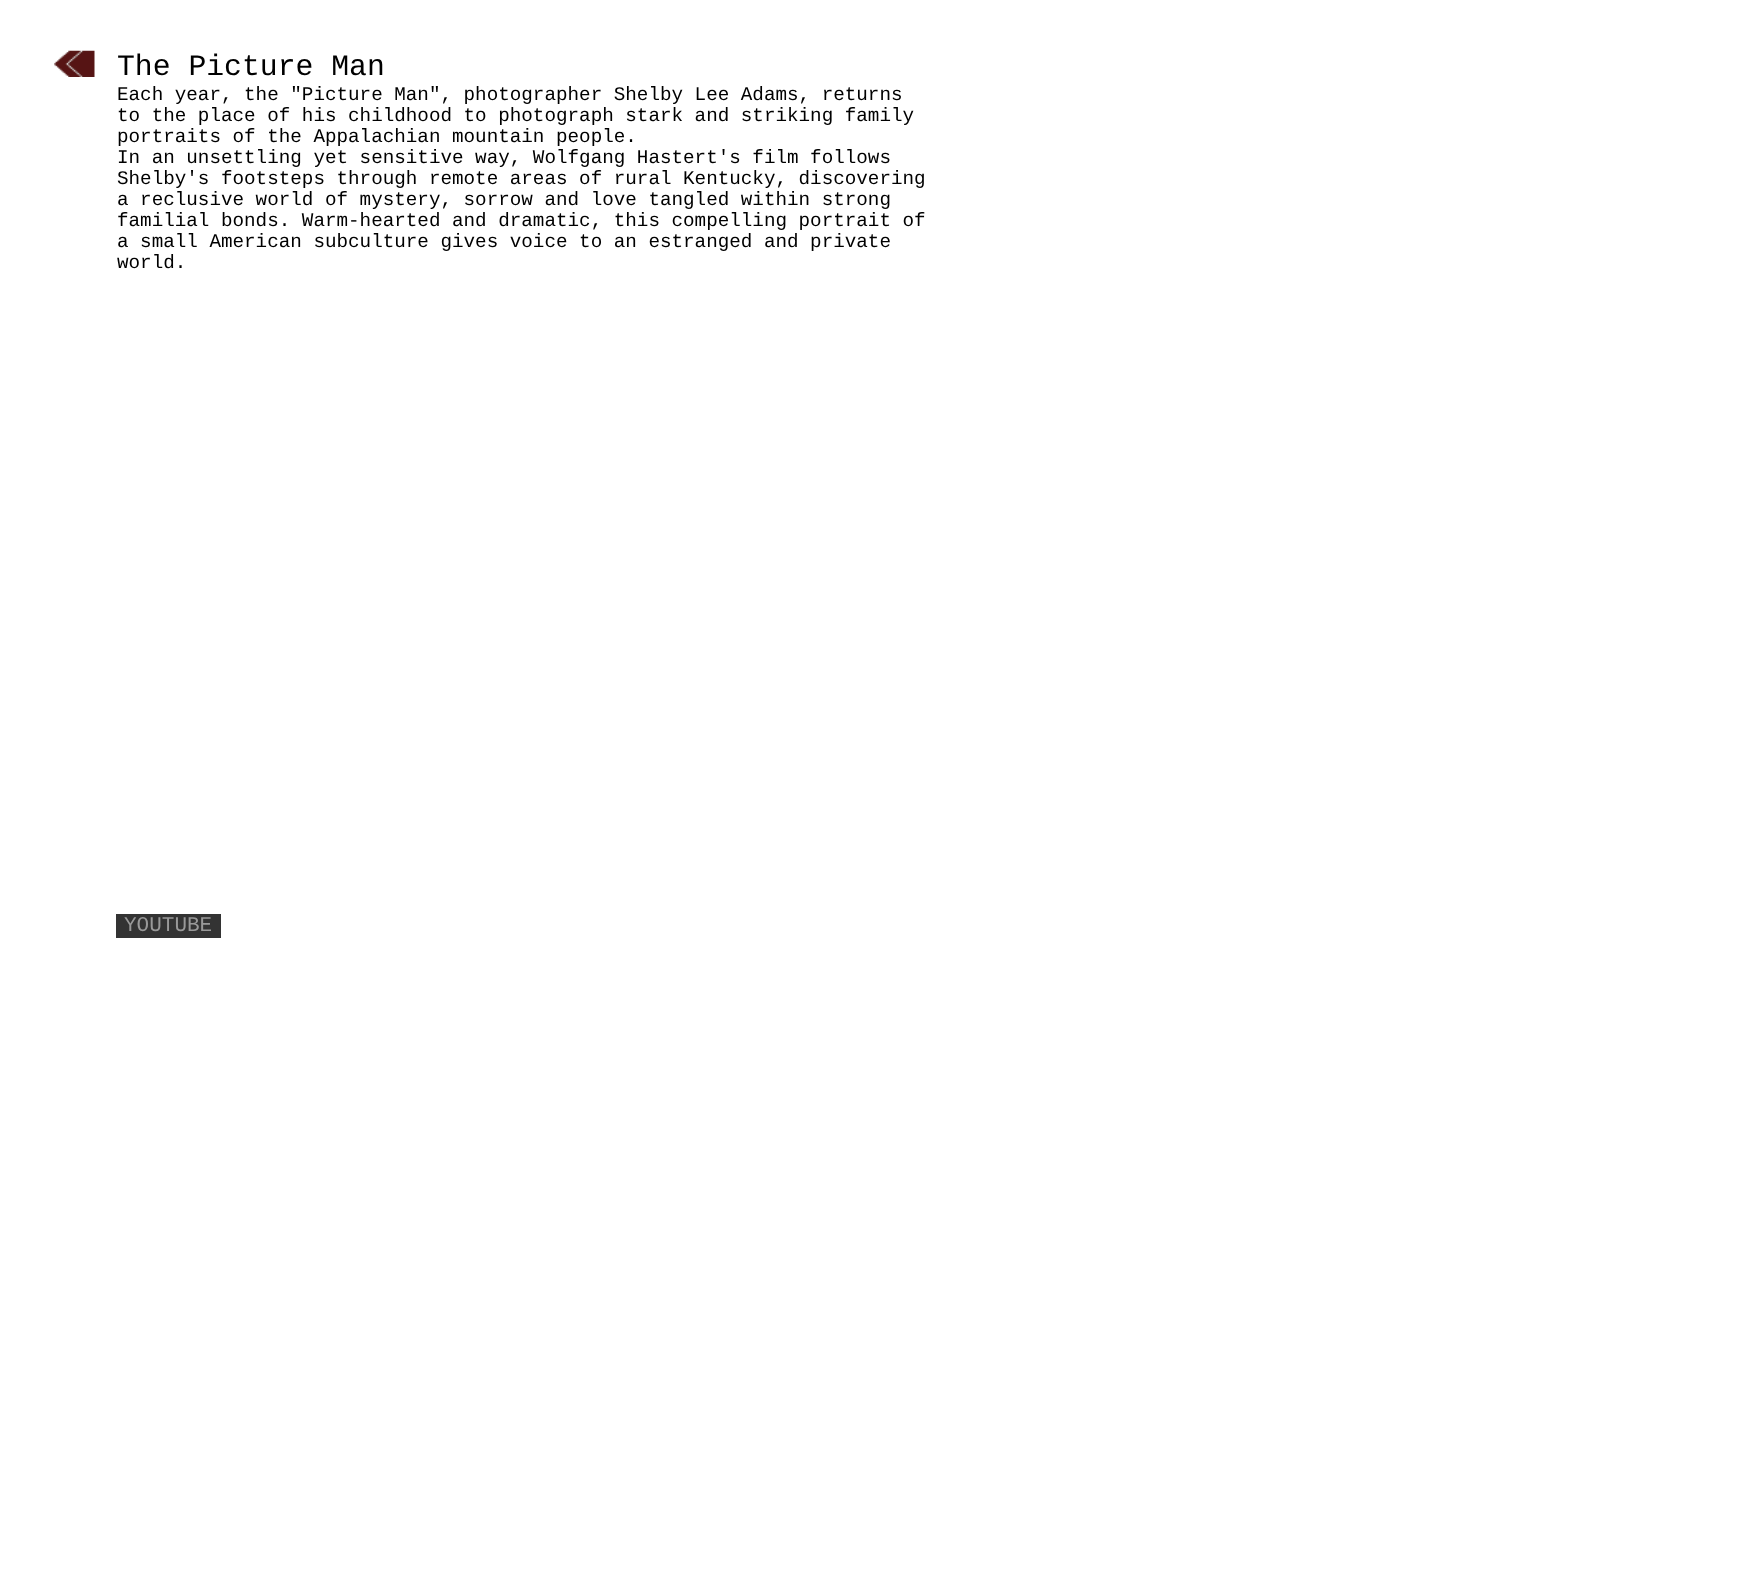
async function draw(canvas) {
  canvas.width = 1746;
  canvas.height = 1580;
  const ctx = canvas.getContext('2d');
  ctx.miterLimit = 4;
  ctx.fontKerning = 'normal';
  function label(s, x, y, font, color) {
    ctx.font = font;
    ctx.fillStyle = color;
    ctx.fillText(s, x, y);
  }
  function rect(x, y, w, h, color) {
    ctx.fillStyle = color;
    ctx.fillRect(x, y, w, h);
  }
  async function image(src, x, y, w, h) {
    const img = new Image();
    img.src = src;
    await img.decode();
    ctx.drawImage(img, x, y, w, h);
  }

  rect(0, 0, 1746, 1580, '#fff');
  await image('assets/img1.png', 54, 50, 41, 27);
  label('The Picture Man', 117, 75, '29.75px Liberation Mono', '#000');
  label('Each year, the "Picture Man", photographer Shelby Lee Adams, returns', 117, 100, '19.25px Liberation Mono', '#000');
  label('to the place of his childhood to photograph stark and striking family', 117, 121, '19.25px Liberation Mono', '#000');
  label('portraits of the Appalachian mountain people.', 117, 142, '19.25px Liberation Mono', '#000');
  label('In an unsettling yet sensitive way, Wolfgang Hastert\'s film follows', 117, 163, '19.25px Liberation Mono', '#000');
  label('Shelby\'s footsteps through remote areas of rural Kentucky, discovering', 117, 184, '19.25px Liberation Mono', '#000');
  label('a reclusive world of mystery, sorrow and love tangled within strong', 117, 205, '19.25px Liberation Mono', '#000');
  label('familial bonds. Warm-hearted and dramatic, this compelling portrait of', 117, 226, '19.25px Liberation Mono', '#000');
  label('a small American subculture gives voice to an estranged and private', 117, 247, '19.25px Liberation Mono', '#000');
  label('world.', 117, 268, '19.25px Liberation Mono', '#000');
  rect(116, 914, 105, 24, '#333');
  label('YOUTUBE', 124, 931, '21px Liberation Mono', '#999');
}

draw(document.querySelector('canvas'));
